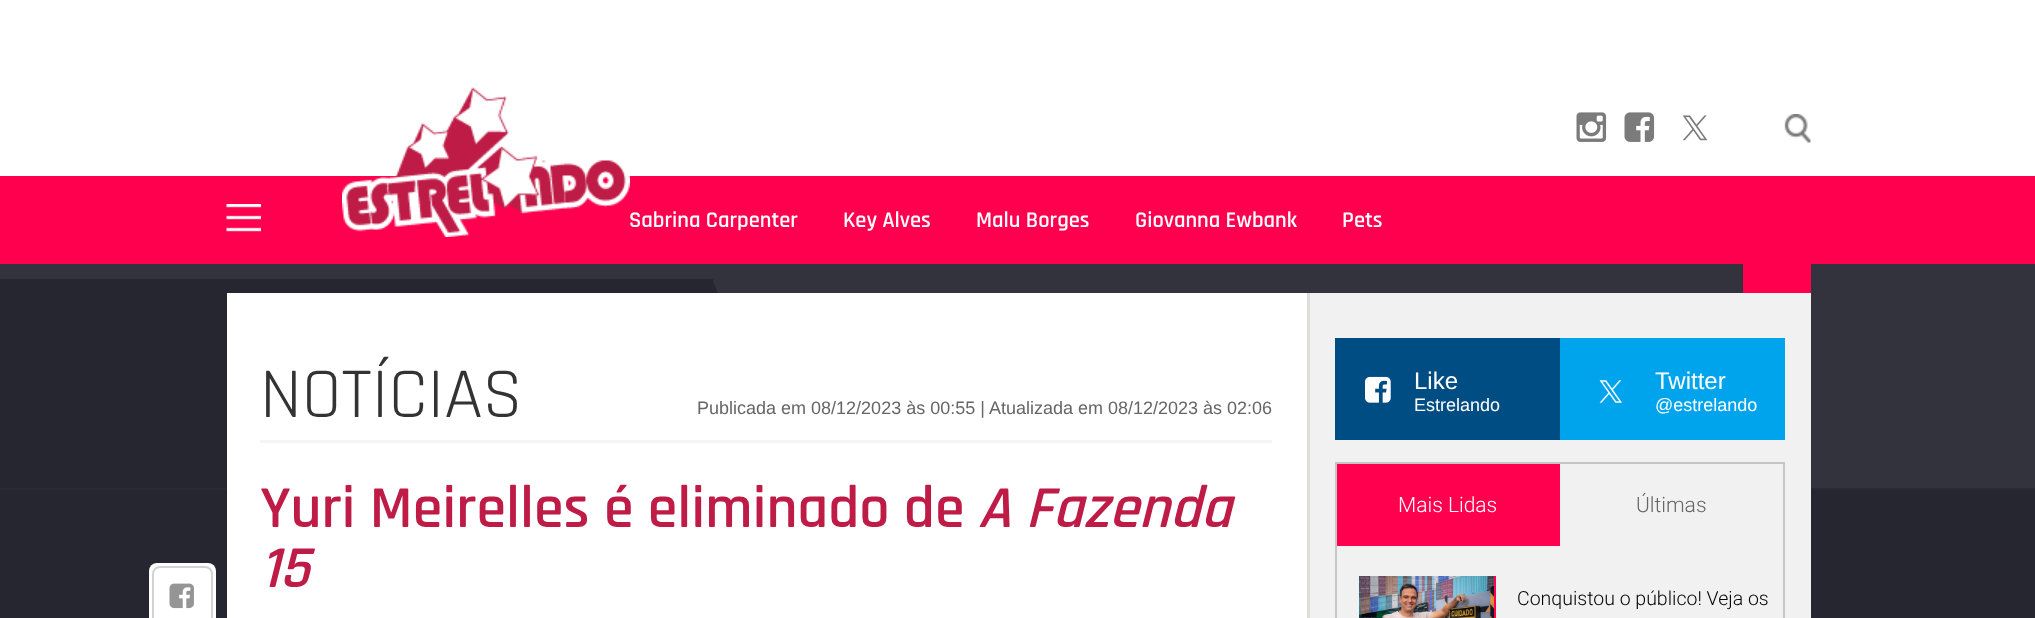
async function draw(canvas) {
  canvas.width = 2035;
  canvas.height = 618;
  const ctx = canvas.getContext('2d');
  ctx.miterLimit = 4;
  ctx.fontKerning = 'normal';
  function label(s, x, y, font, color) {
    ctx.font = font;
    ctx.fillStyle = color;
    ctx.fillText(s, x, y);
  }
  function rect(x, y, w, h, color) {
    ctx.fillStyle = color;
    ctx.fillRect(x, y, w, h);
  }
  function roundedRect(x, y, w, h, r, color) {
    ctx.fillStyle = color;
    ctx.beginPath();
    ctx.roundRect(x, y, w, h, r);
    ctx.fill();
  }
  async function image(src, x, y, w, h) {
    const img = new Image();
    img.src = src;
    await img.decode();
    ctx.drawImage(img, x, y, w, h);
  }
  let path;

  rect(0, 0, 2035, 618, '#33333d');
  rect(0, 0, 2035, 176, '#fff');
  await image('assets/img1.png', 1576, 112, 31, 30);
  await image('assets/img2.png', 1624, 112, 31, 30);
  await image('assets/img3.png', 1682, 115, 26, 26);
  await image('assets/img4.png', 1784, 114, 27, 29);
  rect(0, 176, 2035, 88, '#ff004e');
  await image('assets/img5.png', 226, 204, 35, 28);
  await image('assets/img6.png', 342, 87, 288, 150);
  label('Sabrina Carpenter', 629, 227, '600 22.5px Rajdhani', '#fff');
  label('Key Alves', 843, 227, '600 22.5px Rajdhani', '#fff');
  label('Malu Borges', 976, 227, '600 22.5px Rajdhani', '#fff');
  label('Giovanna Ewbank', 1135, 227, '600 22.5px Rajdhani', '#fff');
  label('Pets', 1342, 227, '600 22.5px Rajdhani', '#fff');
  rect(0, 279, 2035, 339, '#262630');
  rect(0, 488, 2035, 2, '#292933');
  rect(713, 279, 1322, 209, '#33333d');
  ctx.fillStyle = '#262630';
  path = new Path2D('M800 488H712V279Z');
  ctx.fill(path);
  rect(227, 293, 1080, 325, '#fff');
  rect(1743, 264, 68, 29, '#ff004e');
  roundedRect(149, 563, 67, 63, 8, '#fff');
  ctx.beginPath();
  ctx.roundRect(153, 567, 59, 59, 7);
  ctx.strokeStyle = '#d2d2d2';
  ctx.lineWidth = 2;
  ctx.stroke();
  await image('assets/img7.png', 169, 583, 25, 26);
  rect(260, 440, 1012, 3, '#f5f5f5');
  label('NOTÍCIAS', 260, 417, '72px Rajdhani', '#333');
  label('Publicada em 08/12/2023 às 00:55 | Atualizada em 08/12/2023 às 02:06', 697, 414, '18px Liberation Sans', '#666');
  label('Yuri Meirelles é eliminado de', 260, 527, '600 60px Rajdhani', '#be1b46');
  label('A Fazenda', 978, 527, 'italic 600 60px Rajdhani', '#be1b46');
  label('15', 260, 587, 'italic 600 60px Rajdhani', '#be1b46');
  rect(1310, 293, 501, 325, '#f1f1f1');
  rect(1307, 293, 3, 325, '#dddddc');
  rect(1335, 338, 225, 102, '#004d83');
  await image('assets/img8.png', 1365, 376, 26, 27);
  label('Like', 1414, 389, '24px Liberation Sans', '#fff');
  label('Estrelando', 1414, 411, '18px Liberation Sans', '#fff');
  rect(1560, 338, 225, 102, '#00a4ec');
  await image('assets/img9.png', 1599, 380, 23, 23);
  label('Twitter', 1655, 389, '24px Liberation Sans', '#fff');
  label('@estrelando', 1655, 411, '18px Liberation Sans', '#fff');
  ctx.strokeStyle = '#c5c5c5';
  ctx.strokeRect(1336, 463, 448, 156);
  rect(1337, 464, 223, 82, '#ff004e');
  label('Mais Lidas', 1398, 512, '300 21px Roboto', '#fff');
  label('Últimas', 1636, 512, '300 21px Roboto', '#666');
  rect(1494, 576, 2, 42, '#ff004e');
  await image('assets/img10.png', 1359, 576, 135, 42);
  label('Conquistou o público! Veja os', 1517, 605, '300 19.5px Roboto', '#000');
}

draw(document.querySelector('canvas'));
